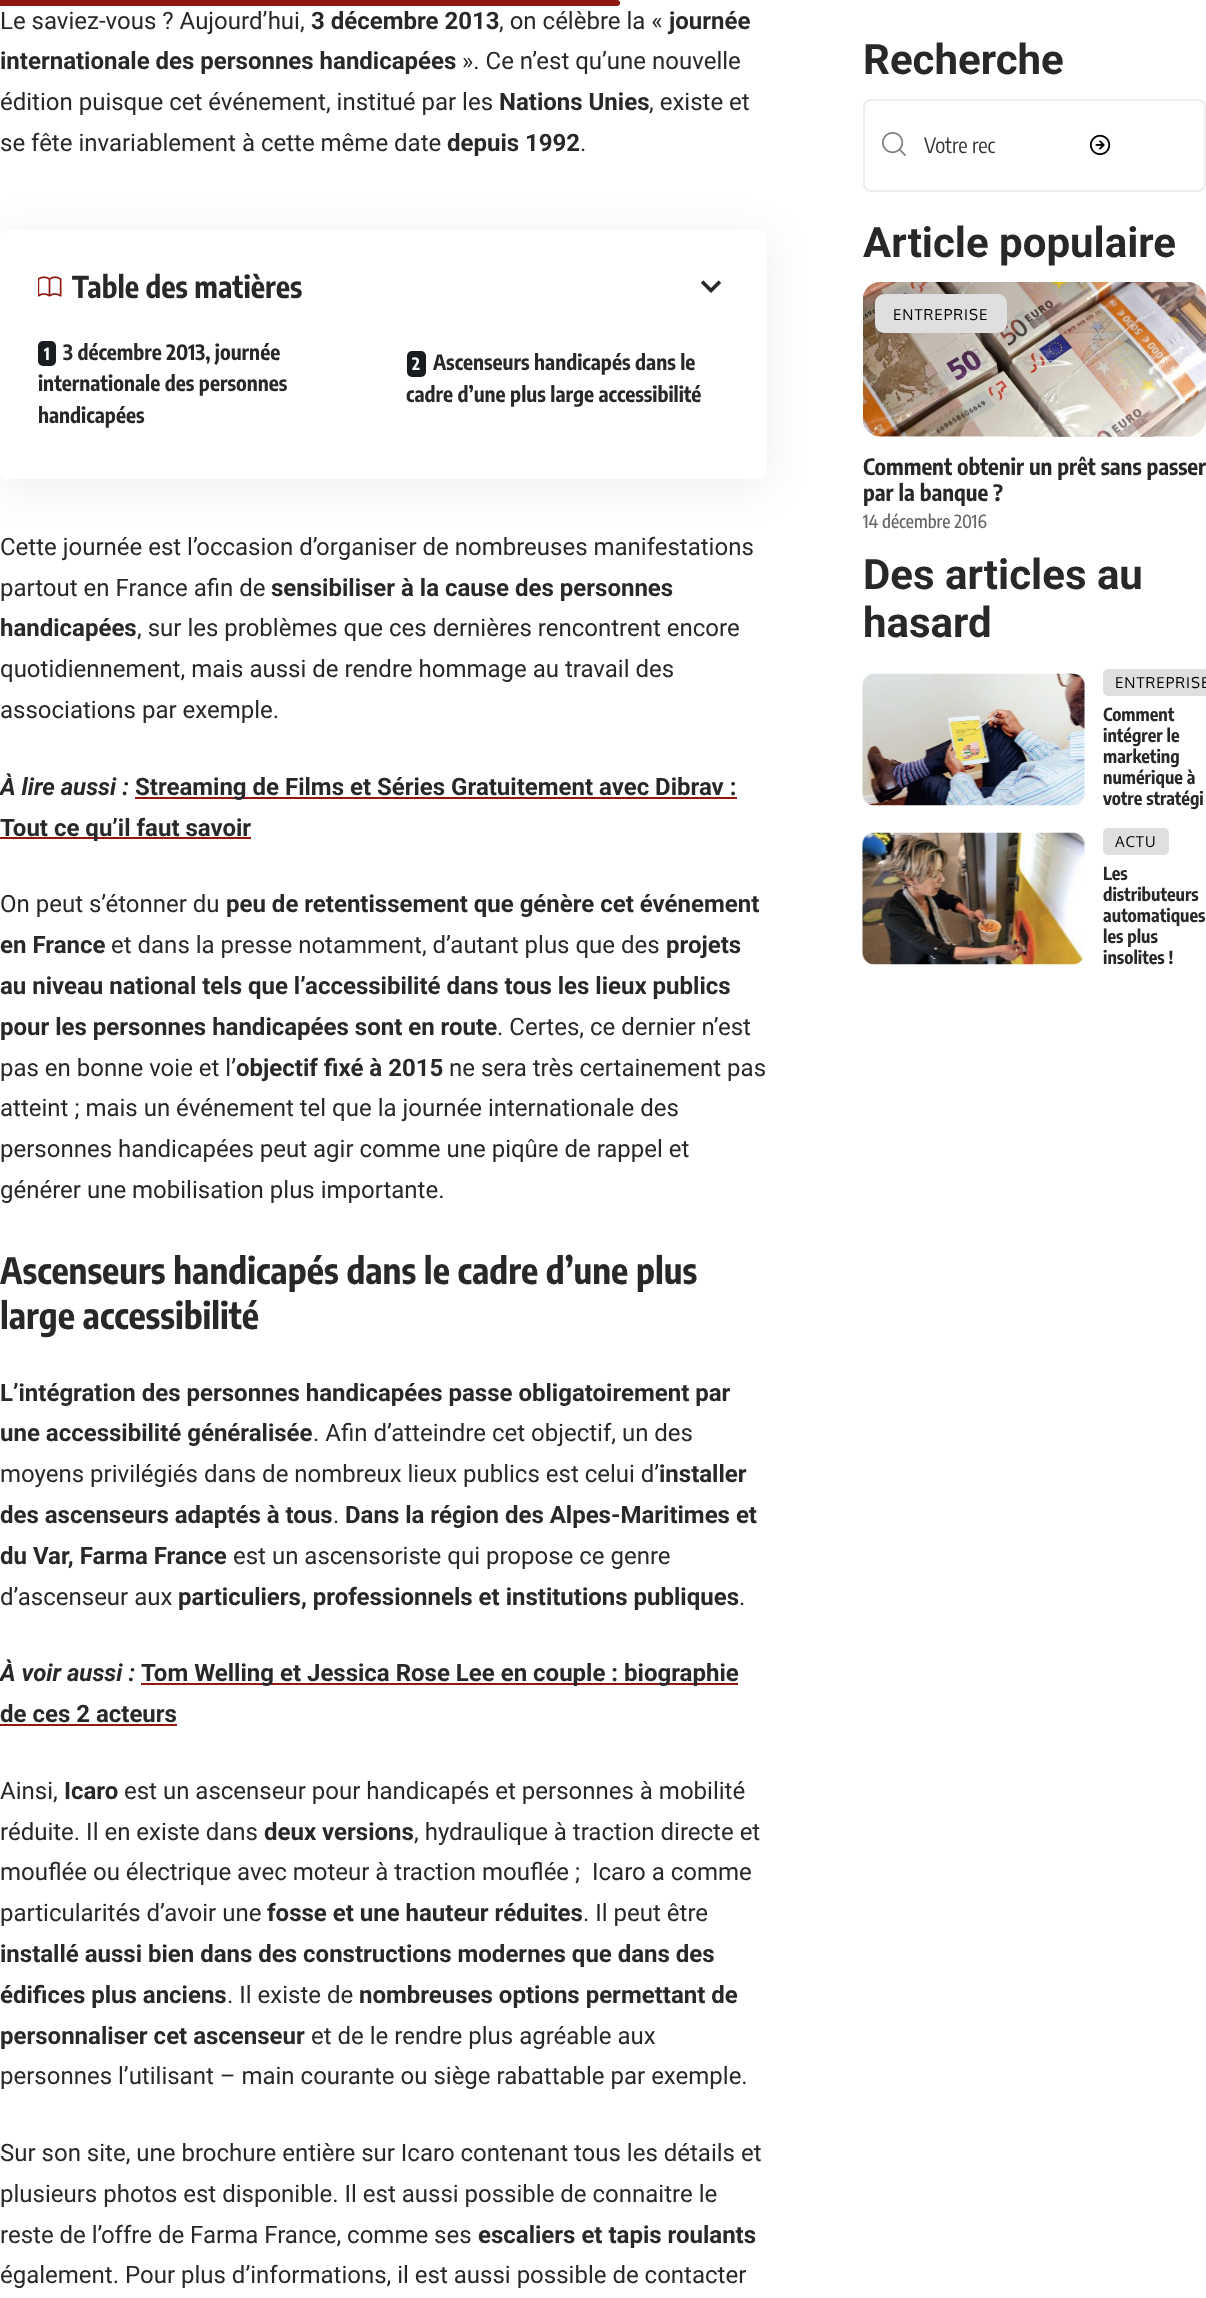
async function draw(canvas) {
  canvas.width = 1206;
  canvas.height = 2298;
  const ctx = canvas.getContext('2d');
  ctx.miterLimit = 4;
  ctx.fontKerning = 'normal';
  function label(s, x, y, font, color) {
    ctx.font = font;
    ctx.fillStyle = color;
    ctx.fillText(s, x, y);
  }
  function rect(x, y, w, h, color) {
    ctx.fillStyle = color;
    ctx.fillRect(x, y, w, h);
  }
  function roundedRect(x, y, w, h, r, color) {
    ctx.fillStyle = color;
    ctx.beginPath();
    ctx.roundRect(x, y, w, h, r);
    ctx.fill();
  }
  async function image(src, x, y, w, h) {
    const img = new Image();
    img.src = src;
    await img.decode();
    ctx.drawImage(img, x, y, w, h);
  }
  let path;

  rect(0, 0, 1206, 2298, '#fff');
  ctx.fillStyle = '#901912';
  ctx.beginPath();
  ctx.roundRect(0, 0, 620, 6, [0, 3, 3, 0]);
  ctx.fill();
  label('Le saviez-vous ? Aujourd’hui,', 0, 29, '24px Roboto', '#282828');
  label('3 décembre 2013', 311, 29, 'bold 24px Roboto', '#282828');
  label(', on célèbre la «', 499, 29, '24px Roboto', '#282828');
  label('journée', 669, 29, 'bold 24px Roboto', '#282828');
  label('internationale des personnes handicapées', 0, 69, 'bold 24px Roboto', '#282828');
  label('». Ce n’est qu’une nouvelle', 462, 69, '24px Roboto', '#282828');
  label('édition puisque cet événement, institué par les', 0, 110, '24px Roboto', '#282828');
  label('Nations Unies', 499, 110, 'bold 24px Roboto', '#282828');
  label(', existe et', 649, 110, '24px Roboto', '#282828');
  label('se fête invariablement à cette même date', 0, 151, '24px Roboto', '#282828');
  label('depuis 1992', 447, 151, 'bold 24px Roboto', '#282828');
  label('.', 580, 151, '24px Roboto', '#282828');
  ctx.save();
  path = new Path2D('M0 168H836V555H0ZM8 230H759C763.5 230 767 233.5 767 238V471C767 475.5 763.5 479 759 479H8C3.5 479 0 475.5 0 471V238C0 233.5 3.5 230 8 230Z');
  ctx.clip(path, 'evenodd');
  ctx.fillStyle = '#00000012';
  ctx.filter = 'blur(22.5px)';
  ctx.beginPath();
  ctx.roundRect(0, 237, 767, 249, 8);
  ctx.fill();
  ctx.filter = 'none';
  ctx.restore();
  await image('assets/img1.png', 38, 276, 24, 21);
  label('Table des matières', 72, 298, 'bold 30px Encode Sans Condensed', '#282828');
  await image('assets/img2.png', 700, 280, 22, 13);
  roundedRect(38, 341, 18, 25, 5, '#191c20');
  label('1', 44, 360, 'bold 17px Encode Sans Condensed', '#fff');
  label('3 décembre 2013, journée', 63, 360, 'bold 21px Encode Sans Condensed', '#282828');
  label('internationale des personnes', 38, 391, 'bold 21px Encode Sans Condensed', '#282828');
  label('handicapées', 38, 423, 'bold 21px Encode Sans Condensed', '#282828');
  roundedRect(407, 351, 19, 26, 5, '#191c20');
  label('2', 412, 370, 'bold 17px Encode Sans Condensed', '#fff');
  label('Ascenseurs handicapés dans le', 433, 370, 'bold 21px Encode Sans Condensed', '#282828');
  label('cadre d’une plus large accessibilité', 406, 402, 'bold 21px Encode Sans Condensed', '#282828');
  label('Cette journée est l’occasion d’organiser de nombreuses manifestations', 0, 555, '24px Roboto', '#282828');
  label('partout en France afin de', 0, 596, '24px Roboto', '#282828');
  label('sensibiliser à la cause des personnes', 271, 596, 'bold 24px Roboto', '#282828');
  label('handicapées', 0, 636, 'bold 24px Roboto', '#282828');
  label(', sur les problèmes que ces dernières rencontrent encore', 137, 636, '24px Roboto', '#282828');
  label('quotidiennement, mais aussi de rendre hommage au travail des', 0, 677, '24px Roboto', '#282828');
  label('associations par exemple.', 0, 718, '24px Roboto', '#282828');
  label('À lire aussi :', 0, 795, 'italic bold 24px Roboto', '#282828');
  rect(135, 797, 602, 2, '#901912');
  label('Streaming de Films et Séries Gratuitement avec Dibrav :', 135, 795, 'bold 24px Roboto', '#282828');
  rect(0, 837, 251, 2, '#901912');
  label('Tout ce qu’il faut savoir', 0, 836, 'bold 24px Roboto', '#282828');
  label('On peut s’étonner du', 0, 912, '24px Roboto', '#282828');
  label('peu de retentissement que génère cet événement', 226, 912, 'bold 24px Roboto', '#282828');
  label('en France', 0, 953, 'bold 24px Roboto', '#282828');
  label('et dans la presse notamment, d’autant plus que des', 111, 953, '24px Roboto', '#282828');
  label('projets', 666, 953, 'bold 24px Roboto', '#282828');
  label('au niveau national tels que l’accessibilité dans tous les lieux publics', 0, 994, 'bold 24px Roboto', '#282828');
  label('pour les personnes handicapées sont en route', 0, 1035, 'bold 24px Roboto', '#282828');
  label('. Certes, ce dernier n’est', 497, 1035, '24px Roboto', '#282828');
  label('pas en bonne voie et l’', 0, 1076, '24px Roboto', '#282828');
  label('objectif fixé à 2015', 236, 1076, 'bold 24px Roboto', '#282828');
  label('ne sera très certainement pas', 449, 1076, '24px Roboto', '#282828');
  label('atteint ; mais un événement tel que la journée internationale des', 0, 1116, '24px Roboto', '#282828');
  label('personnes handicapées peut agir comme une piqûre de rappel et', 0, 1157, '24px Roboto', '#282828');
  label('générer une mobilisation plus importante.', 0, 1198, '24px Roboto', '#282828');
  label('Ascenseurs handicapés dans le cadre d’une plus', 0, 1284, 'bold 36px Encode Sans Condensed', '#282828');
  label('large accessibilité', 0, 1329, 'bold 36px Encode Sans Condensed', '#282828');
  label('L’intégration des personnes handicapées passe obligatoirement par', 0, 1401, 'bold 24px Roboto', '#282828');
  label('une accessibilité généralisée', 0, 1441, 'bold 24px Roboto', '#282828');
  label('. Afin d’atteindre cet objectif, un des', 313, 1441, '24px Roboto', '#282828');
  label('moyens privilégiés dans de nombreux lieux publics est celui d’', 0, 1482, '24px Roboto', '#282828');
  label('installer', 659, 1482, 'bold 24px Roboto', '#282828');
  label('des ascenseurs adaptés à tous', 0, 1523, 'bold 24px Roboto', '#282828');
  label('.', 333, 1523, '24px Roboto', '#282828');
  label('Dans la région des Alpes-Maritimes et', 345, 1523, 'bold 24px Roboto', '#282828');
  label('du Var, Farma France', 0, 1564, 'bold 24px Roboto', '#282828');
  label('est un ascensoriste qui propose ce genre', 233, 1564, '24px Roboto', '#282828');
  label('d’ascenseur aux', 0, 1605, '24px Roboto', '#282828');
  label('particuliers, professionnels et institutions publiques', 178, 1605, 'bold 24px Roboto', '#282828');
  label('.', 739, 1605, '24px Roboto', '#282828');
  label('À voir aussi :', 0, 1681, 'italic bold 24px Roboto', '#282828');
  rect(141, 1683, 597, 2, '#901912');
  label('Tom Welling et Jessica Rose Lee en couple : biographie', 141, 1681, 'bold 24px Roboto', '#282828');
  label('de ces 2 acteurs', 0, 1722, 'bold 24px Roboto', '#282828');
  rect(0, 1724, 177, 2, '#901912');
  label('Ainsi,', 0, 1799, '24px Roboto', '#282828');
  label('Icaro', 64, 1799, 'bold 24px Roboto', '#282828');
  label('est un ascenseur pour handicapés et personnes à mobilité', 124, 1799, '24px Roboto', '#282828');
  label('réduite. Il en existe dans', 0, 1840, '24px Roboto', '#282828');
  label('deux versions', 264, 1840, 'bold 24px Roboto', '#282828');
  label(', hydraulique à traction directe et', 414, 1840, '24px Roboto', '#282828');
  label('mouflée ou électrique avec moteur à traction mouflée ;  Icaro a comme', 0, 1880, '24px Roboto', '#282828');
  label('particularités d’avoir une', 0, 1921, '24px Roboto', '#282828');
  label('fosse et une hauteur réduites', 267, 1921, 'bold 24px Roboto', '#282828');
  label('. Il peut être', 583, 1921, '24px Roboto', '#282828');
  label('installé aussi bien dans des constructions modernes que dans des', 0, 1962, 'bold 24px Roboto', '#282828');
  label('édifices plus anciens', 0, 2003, 'bold 24px Roboto', '#282828');
  label('. Il existe de', 227, 2003, '24px Roboto', '#282828');
  label('nombreuses options permettant de', 359, 2003, 'bold 24px Roboto', '#282828');
  label('personnaliser cet ascenseur', 0, 2044, 'bold 24px Roboto', '#282828');
  label('et de le rendre plus agréable aux', 311, 2044, '24px Roboto', '#282828');
  label('personnes l’utilisant – main courante ou siège rabattable par exemple.', 0, 2084, '24px Roboto', '#282828');
  label('Sur son site, une brochure entière sur Icaro contenant tous les détails et', 0, 2161, '24px Roboto', '#282828');
  label('plusieurs photos est disponible. Il est aussi possible de connaitre le', 0, 2202, '24px Roboto', '#282828');
  label('reste de l’offre de Farma France, comme ses', 0, 2243, '24px Roboto', '#282828');
  label('escaliers et tapis roulants', 478, 2243, 'bold 24px Roboto', '#282828');
  label('également. Pour plus d’informations, il est aussi possible de contacter', 0, 2283, '24px Roboto', '#282828');
  label('Recherche', 863, 74, 'bold 42px Roboto', '#282828');
  ctx.beginPath();
  ctx.roundRect(864, 100, 341, 91, 7);
  ctx.strokeStyle = '#ededed';
  ctx.lineWidth = 2;
  ctx.stroke();
  await image('assets/img3.png', 882, 132, 24, 24);
  ctx.save();
  ctx.beginPath();
  ctx.rect(924, 132, 71, 26);
  ctx.clip();
  label('Votre rec', 924, 153, '21px Encode Sans Condensed', '#333');
  ctx.restore();
  await image('assets/img4.png', 1089, 134, 22, 22);
  label('Article populaire', 863, 257, 'bold 42px Roboto', '#282828');
  await image('assets/img5.png', 863, 282, 343, 155);
  roundedRect(875, 294, 132, 39, 9, '#dfdfdf');
  ctx.letterSpacing = '1px';
  label('ENTREPRISE', 893, 320, '15px Oxygen', '#000');
  ctx.letterSpacing = '0px';
  label('Comment obtenir un prêt sans passer', 863, 475, 'bold 22.5px Encode Sans Condensed', '#282828');
  label('par la banque ?', 863, 501, 'bold 22.5px Encode Sans Condensed', '#282828');
  label('14 décembre 2016', 863, 528, '500 18px Encode Sans Condensed', '#666');
  label('Des articles au', 863, 589, 'bold 42px Roboto', '#282828');
  label('hasard', 863, 637, 'bold 42px Roboto', '#282828');
  await image('assets/img6.png', 862, 673, 223, 133);
  roundedRect(1103, 669, 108, 27, 5, '#dfdfdf');
  ctx.letterSpacing = '1px';
  label('ENTREPRISE', 1115, 688, '15px Oxygen', '#000');
  ctx.letterSpacing = '0px';
  label('Comment', 1103, 721, 'bold 18px Encode Sans Condensed', '#282828');
  label('intégrer le', 1103, 742, 'bold 18px Encode Sans Condensed', '#282828');
  label('marketing', 1103, 763, 'bold 18px Encode Sans Condensed', '#282828');
  label('numérique à', 1103, 784, 'bold 18px Encode Sans Condensed', '#282828');
  label('votre stratégi', 1103, 805, 'bold 18px Encode Sans Condensed', '#282828');
  await image('assets/img7.png', 862, 832, 223, 133);
  roundedRect(1103, 828, 66, 27, 5, '#dfdfdf');
  ctx.letterSpacing = '1px';
  label('ACTU', 1115, 847, '15px Oxygen', '#000');
  ctx.letterSpacing = '0px';
  label('Les', 1103, 880, 'bold 18px Encode Sans Condensed', '#282828');
  label('distributeurs', 1103, 901, 'bold 18px Encode Sans Condensed', '#282828');
  label('automatiques', 1103, 922, 'bold 18px Encode Sans Condensed', '#282828');
  label('les plus', 1103, 943, 'bold 18px Encode Sans Condensed', '#282828');
  label('insolites !', 1103, 964, 'bold 18px Encode Sans Condensed', '#282828');
}

draw(document.querySelector('canvas'));
